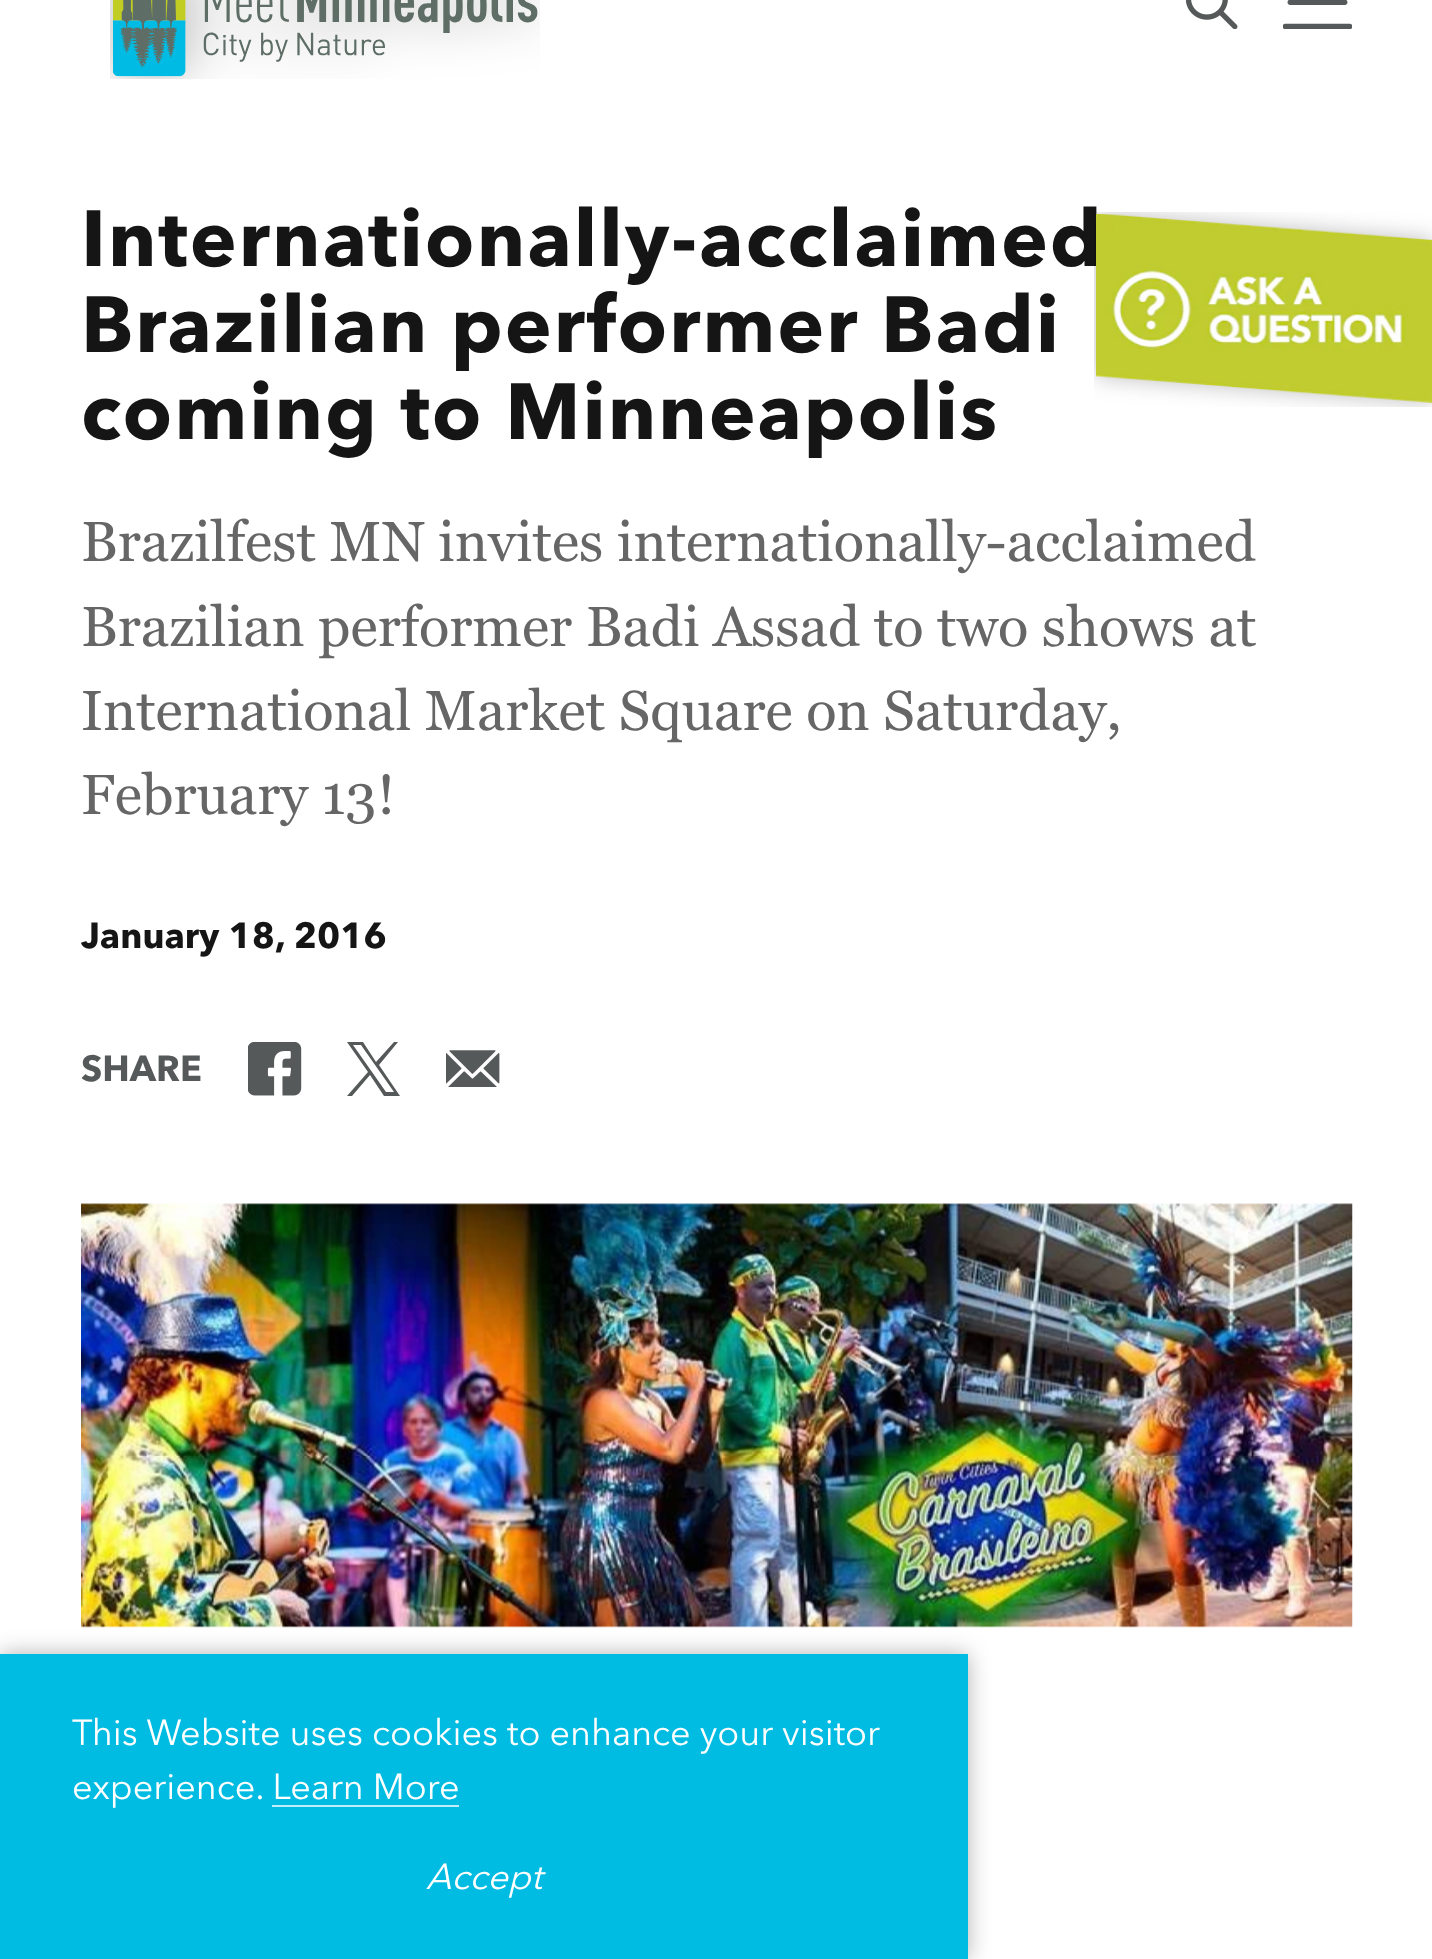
async function draw(canvas) {
  canvas.width = 1432;
  canvas.height = 1959;
  const ctx = canvas.getContext('2d');
  ctx.miterLimit = 4;
  ctx.fontKerning = 'normal';
  function label(s, x, y, font, color) {
    ctx.font = font;
    ctx.fillStyle = color;
    ctx.fillText(s, x, y);
  }
  function rect(x, y, w, h, color) {
    ctx.fillStyle = color;
    ctx.fillRect(x, y, w, h);
  }
  async function image(src, x, y, w, h) {
    const img = new Image();
    img.src = src;
    await img.decode();
    ctx.drawImage(img, x, y, w, h);
  }
  let path;

  rect(0, 0, 1432, 1959, '#fff');
  await image('assets/img1.png', 110, 0, 430, 79);
  await image('assets/img2.png', 1186, 0, 52, 29);
  await image('assets/img3.png', 1283, 0, 69, 29);
  ctx.letterSpacing = '2px';
  label('Internationally-acclaimed', 81, 266, 'bold 78.75px Avenir Next', '#151515');
  label('Brazilian performer Badi', 81, 352, 'bold 78.75px Avenir Next', '#151515');
  label('coming to Minneapolis', 81, 439, 'bold 78.75px Avenir Next', '#151515');
  ctx.letterSpacing = '0px';
  label('Brazilfest MN invites internationally-acclaimed', 81, 561, '56.25px Georgia', '#666');
  label('Brazilian performer Badi Assad to two shows at', 81, 646, '56.25px Georgia', '#666');
  label('International Market Square on Saturday,', 81, 730, '56.25px Georgia', '#666');
  label('February 13!', 81, 814, '56.25px Georgia', '#666');
  label('January 18, 2016', 81, 948, 'bold 36px Avenir Next', '#151515');
  label('SHARE', 81, 1081, 'bold 36px Avenir Next', '#565959');
  await image('assets/img4.png', 248, 1042, 54, 54);
  path = new Path2D('M379 1065L398 1042H394L376 1062L363 1042H347L368 1072L347 1096H352L370 1075L384 1096H400ZM372 1072L353 1045H361L394 1092H386Z');
  ctx.fill(path);
  await image('assets/img5.png', 446, 1050, 54, 37);
  await image('assets/img6.png', 81, 1203, 1272, 425);
  await image('assets/img7.png', 1094, 212, 338, 195);
  ctx.fillStyle = '#0000004d';
  ctx.filter = 'blur(11px)';
  ctx.beginPath();
  ctx.rect(0, 1654, 968, 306);
  ctx.fill();
  ctx.filter = 'none';
  rect(0, 1654, 968, 305, '#00bce2');
  label('This Website uses cookies to enhance your visitor', 72, 1745, '36px "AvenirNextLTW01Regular"', '#fff');
  label('experience. Learn More', 72, 1799, '36px "AvenirNextLTW01Regular"', '#fff');
  rect(272, 1805, 187, 2, '#bfeef8');
  label('Accept', 426, 1889, 'italic 36px "AvenirNextLTW01Regular"', '#fff');
}

draw(document.querySelector('canvas'));
